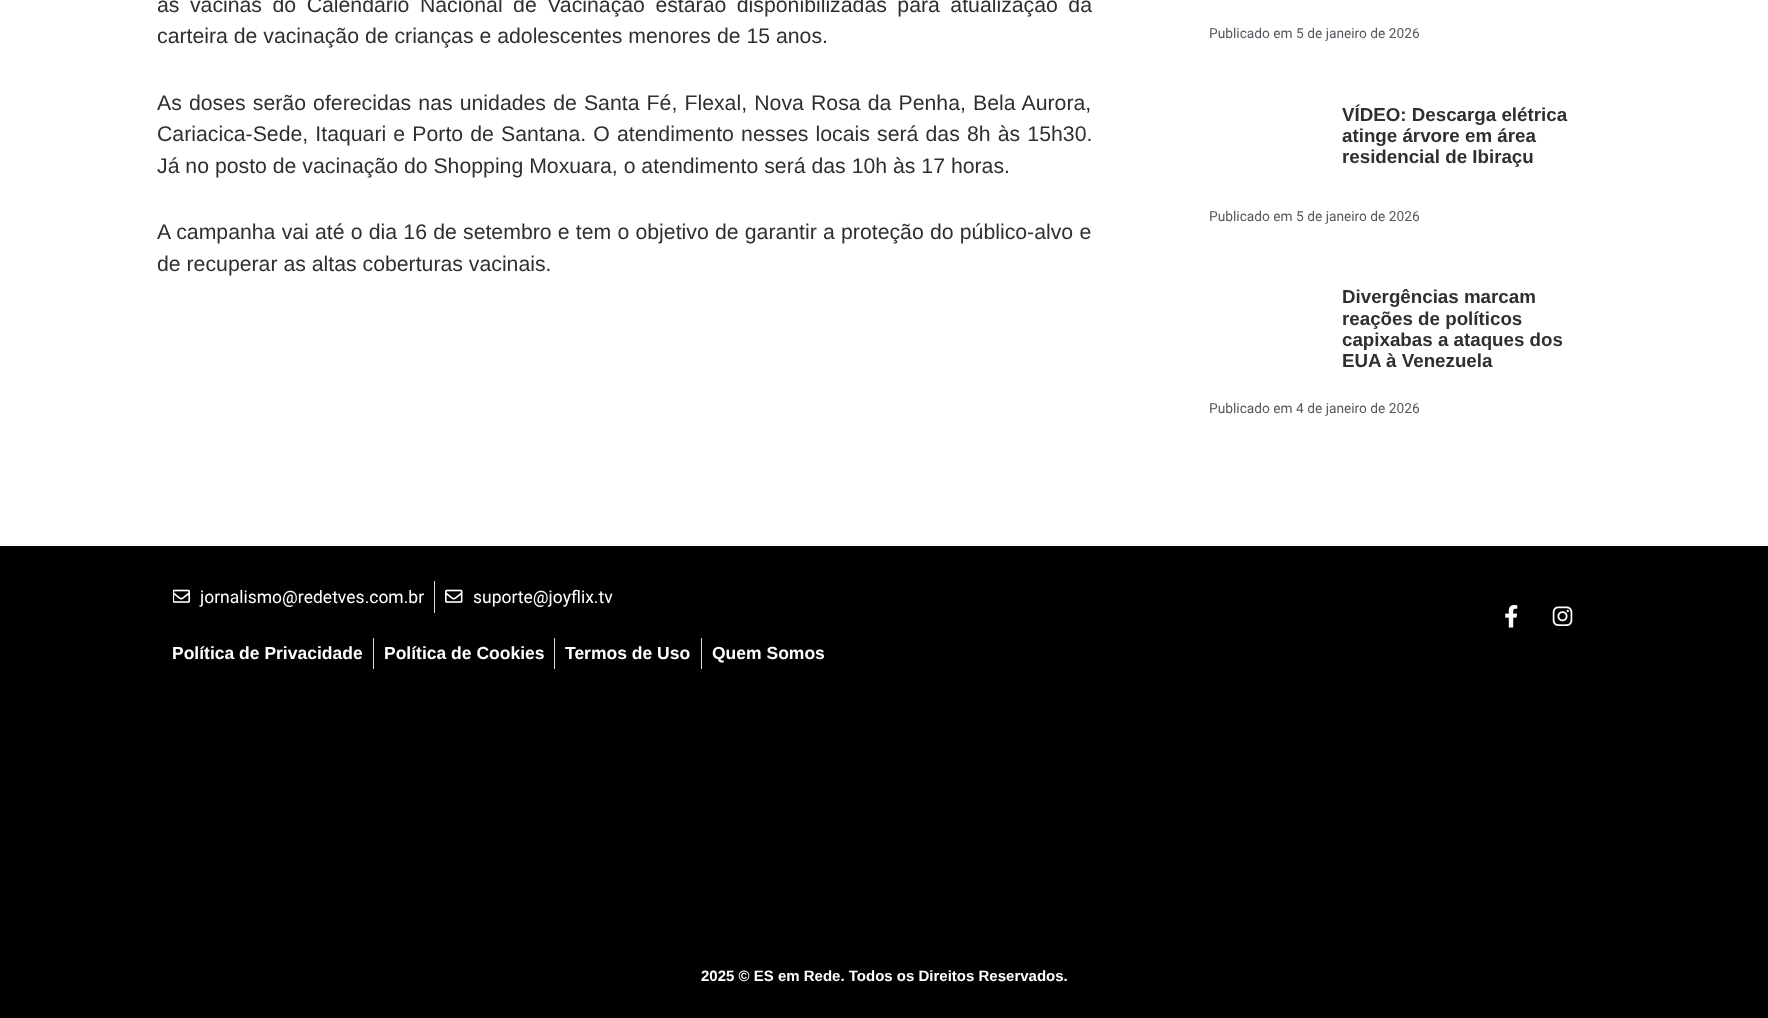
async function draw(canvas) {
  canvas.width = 1768;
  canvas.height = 1018;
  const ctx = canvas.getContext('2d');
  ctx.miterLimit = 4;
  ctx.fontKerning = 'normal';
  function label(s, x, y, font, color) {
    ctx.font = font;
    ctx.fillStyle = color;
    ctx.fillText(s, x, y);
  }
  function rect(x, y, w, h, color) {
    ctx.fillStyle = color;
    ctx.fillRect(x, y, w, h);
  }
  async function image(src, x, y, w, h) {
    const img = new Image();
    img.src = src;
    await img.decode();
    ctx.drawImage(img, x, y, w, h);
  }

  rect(0, 0, 1768, 1018, '#fff');
  ctx.wordSpacing = '4.6px';
  label('as vacinas do Calendário Nacional de Vacinação estarão disponibilizadas para atualização da', 157, 12, '21.25px Liberation Sans', '#2f2f2f');
  ctx.wordSpacing = '0px';
  label('carteira de vacinação de crianças e adolescentes menores de 15 anos.', 157, 43, '21.25px Liberation Sans', '#2f2f2f');
  ctx.wordSpacing = '1.25px';
  label('As doses serão oferecidas nas unidades de Santa Fé, Flexal, Nova Rosa da Penha, Bela Aurora,', 157, 110, '21.25px Liberation Sans', '#2f2f2f');
  label('Cariacica-Sede, Itaquari e Porto de Santana. O atendimento nesses locais será das 8h às 15h30.', 157, 141, '21.25px Liberation Sans', '#2f2f2f');
  ctx.wordSpacing = '0px';
  label('Já no posto de vacinação do Shopping Moxuara, o atendimento será das 10h às 17 horas.', 157, 173, '21.25px Liberation Sans', '#2f2f2f');
  ctx.wordSpacing = '0.3px';
  label('A campanha vai até o dia 16 de setembro e tem o objetivo de garantir a proteção do público-alvo e', 157, 239, '21.25px Liberation Sans', '#2f2f2f');
  ctx.wordSpacing = '0px';
  label('de recuperar as altas coberturas vacinais.', 157, 271, '21.25px Liberation Sans', '#2f2f2f');
  label('Publicado em 5 de janeiro de 2026', 1209, 38, '13.75px Roboto', '#54595f');
  label('VÍDEO: Descarga elétrica', 1342, 121, 'bold 18.75px Liberation Sans', '#2f2f2f');
  label('atinge árvore em área', 1342, 142, 'bold 18.75px Liberation Sans', '#2f2f2f');
  label('residencial de Ibiraçu', 1342, 163, 'bold 18.75px Liberation Sans', '#2f2f2f');
  label('Publicado em 5 de janeiro de 2026', 1209, 221, '13.75px Roboto', '#54595f');
  label('Divergências marcam', 1342, 303, 'bold 18.75px Liberation Sans', '#2f2f2f');
  label('reações de políticos', 1342, 325, 'bold 18.75px Liberation Sans', '#2f2f2f');
  label('capixabas a ataques dos', 1342, 346, 'bold 18.75px Liberation Sans', '#2f2f2f');
  label('EUA à Venezuela', 1342, 367, 'bold 18.75px Liberation Sans', '#2f2f2f');
  label('Publicado em 4 de janeiro de 2026', 1209, 413, '13.75px Roboto', '#54595f');
  rect(0, 546, 1768, 472, '#000');
  await image('assets/img1.png', 173, 589, 17, 14);
  label('jornalismo@redetves.com.br', 200, 603, '17.5px Roboto', '#fff');
  rect(434, 581, 1, 32, '#ddd');
  await image('assets/img2.png', 445, 589, 18, 14);
  label('suporte@joyflix.tv', 473, 603, '17.5px Roboto', '#fff');
  label('Política de Privacidade', 172, 659, 'bold 17.5px Liberation Sans', '#fff');
  rect(373, 638, 1, 31, '#ddd');
  label('Política de Cookies', 384, 659, 'bold 17.5px Liberation Sans', '#fff');
  rect(554, 638, 1, 31, '#ddd');
  label('Termos de Uso', 565, 659, 'bold 17.5px Liberation Sans', '#fff');
  rect(701, 638, 1, 31, '#ddd');
  label('Quem Somos', 712, 659, 'bold 17.5px Liberation Sans', '#fff');
  await image('assets/img3.png', 1505, 605, 13, 23);
  await image('assets/img4.png', 1552, 606, 21, 20);
  label('2025 © ES em Rede. Todos os Direitos Reservados.', 701, 981, 'bold 15px Liberation Sans', '#fff');
}

draw(document.querySelector('canvas'));
